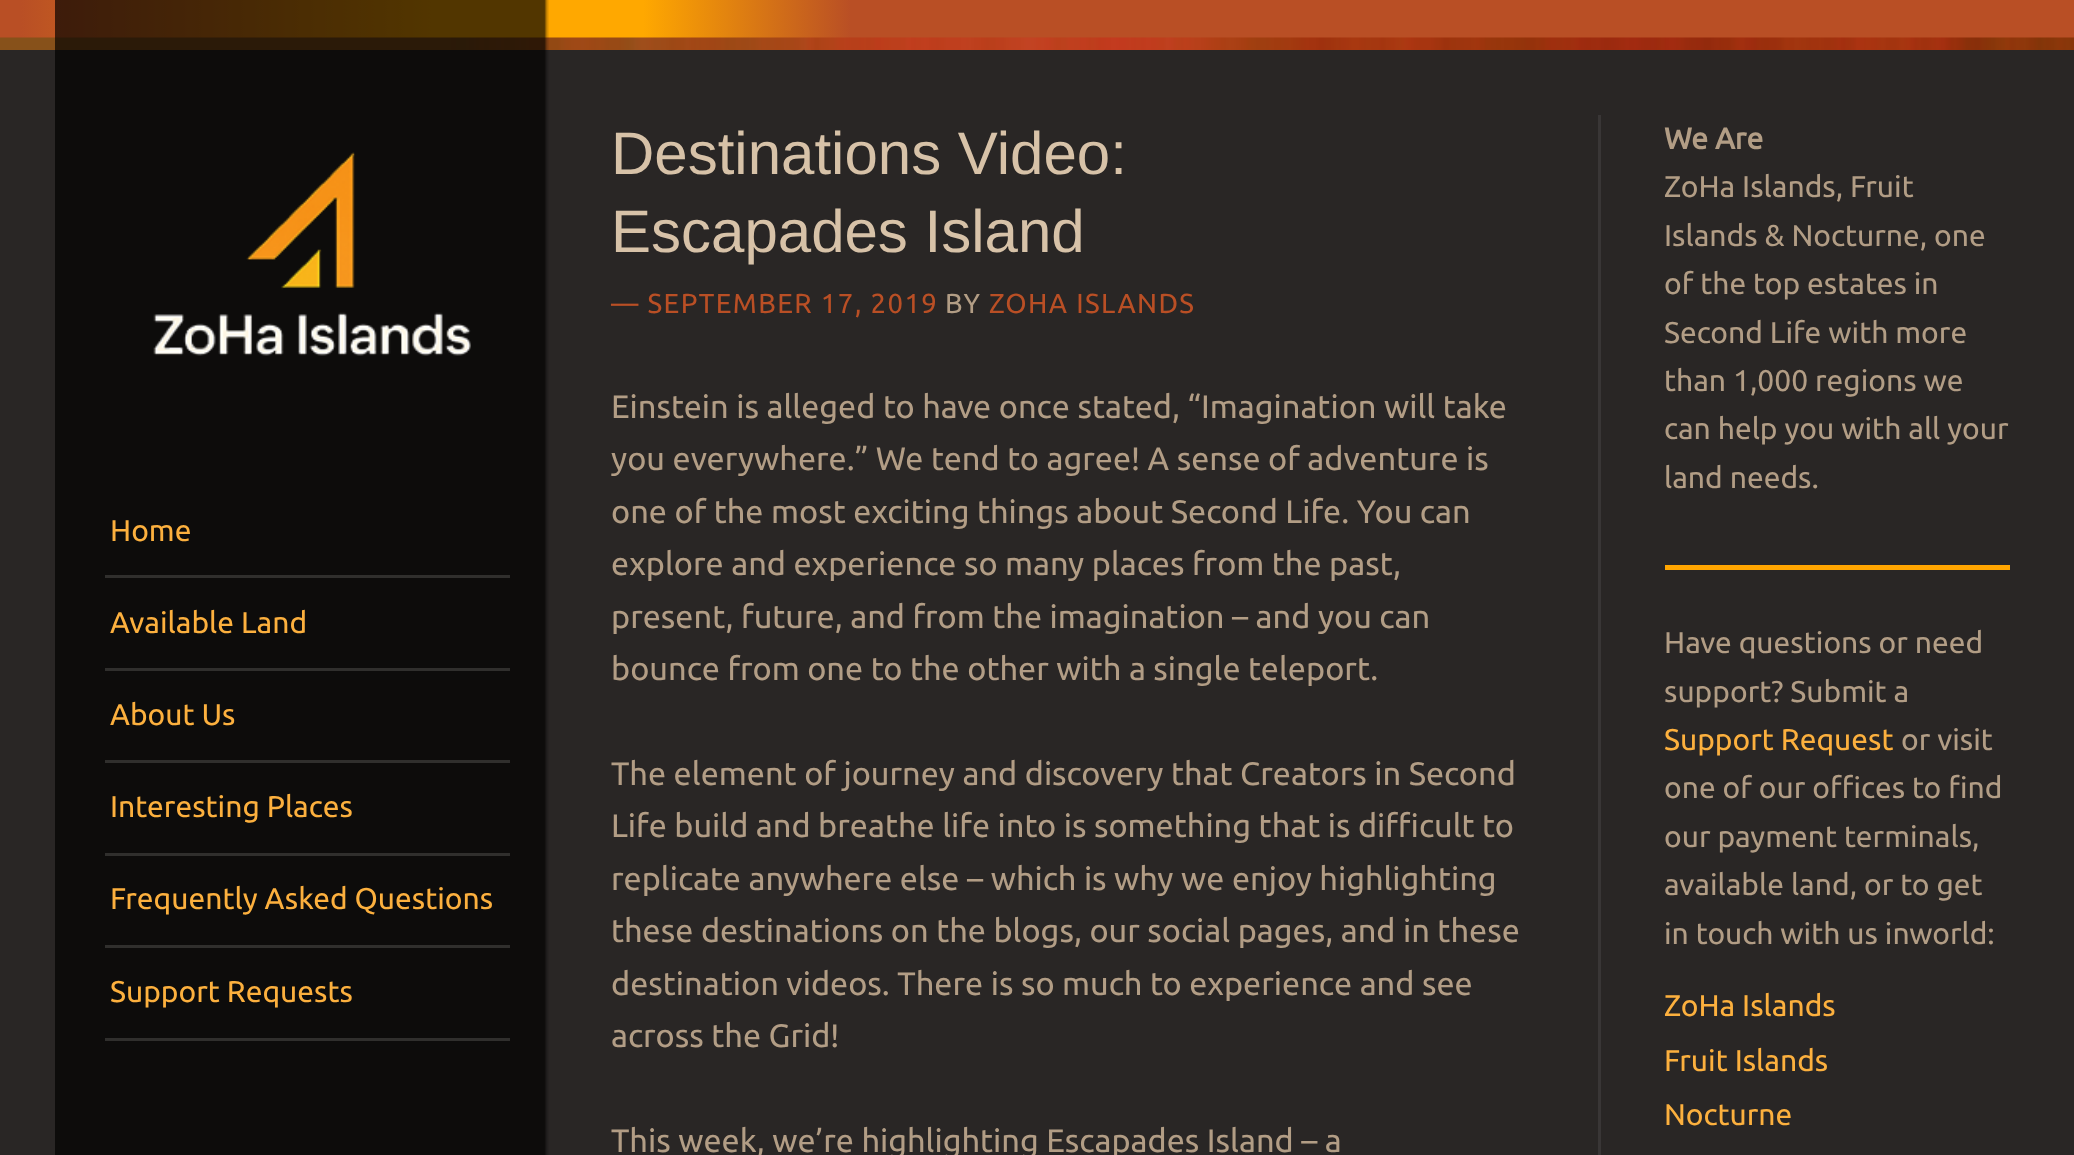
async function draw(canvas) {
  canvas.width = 2074;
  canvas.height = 1155;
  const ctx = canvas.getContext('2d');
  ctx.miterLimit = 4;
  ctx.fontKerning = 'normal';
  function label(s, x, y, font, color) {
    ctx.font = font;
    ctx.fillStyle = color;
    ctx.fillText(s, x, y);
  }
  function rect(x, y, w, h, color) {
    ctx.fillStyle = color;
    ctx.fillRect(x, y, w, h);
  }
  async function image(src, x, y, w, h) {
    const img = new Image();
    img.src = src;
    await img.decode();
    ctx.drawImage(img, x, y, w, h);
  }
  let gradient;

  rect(0, 0, 2074, 1155, '#292625');
  gradient = ctx.createLinearGradient(0, 25, 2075, 25);
  gradient.addColorStop(0.01, '#b94f25');
  gradient.addColorStop(0.21, '#ffa800');
  gradient.addColorStop(0.31, '#ffa800');
  gradient.addColorStop(0.41, '#b94f25');
  ctx.fillStyle = gradient;
  ctx.fillRect(0, 0, 2074, 38);
  await image('assets/img1.png', 0, 37, 2074, 13);
  await image('assets/img2.png', 55, 0, 494, 1155);
  await image('assets/img3.png', 153, 152, 318, 204);
  rect(105, 575, 405, 3, '#302f2d');
  label('Home', 110, 541, '30px Ubuntu', '#fcb03e');
  rect(105, 668, 405, 3, '#302f2d');
  label('Available Land', 110, 633, '30px Ubuntu', '#fcb03e');
  rect(105, 760, 405, 3, '#302f2d');
  label('About Us', 110, 725, '30px Ubuntu', '#fcb03e');
  rect(105, 853, 405, 3, '#302f2d');
  label('Interesting Places', 110, 817, '30px Ubuntu', '#fcb03e');
  rect(105, 945, 405, 3, '#302f2d');
  label('Frequently Asked Questions', 110, 909, '30px Ubuntu', '#fcb03e');
  rect(105, 1038, 405, 3, '#302f2d');
  label('Support Requests', 110, 1002, '30px Ubuntu', '#fcb03e');
  label('Destinations Video:', 611, 174, '60px Liberation Sans', '#d7c2a8');
  label('Escapades Island', 611, 252, '60px Liberation Sans', '#d7c2a8');
  ctx.letterSpacing = '1.4px';
  label('— SEPTEMBER 17, 2019', 611, 313, '27.5px Ubuntu', '#b94f25');
  label('BY', 945, 313, '27.5px Ubuntu', '#b29d85');
  label('ZOHA ISLANDS', 989, 313, '27.5px Ubuntu', '#b94f25');
  ctx.letterSpacing = '0px';
  label('Einstein is alleged to have once stated, “Imagination will take', 611, 418, '32.5px Ubuntu', '#b29d85');
  label('you everywhere.” We tend to agree! A sense of adventure is', 611, 470, '32.5px Ubuntu', '#b29d85');
  label('one of the most exciting things about Second Life. You can', 611, 523, '32.5px Ubuntu', '#b29d85');
  label('explore and experience so many places from the past,', 611, 575, '32.5px Ubuntu', '#b29d85');
  label('present, future, and from the imagination – and you can', 611, 628, '32.5px Ubuntu', '#b29d85');
  label('bounce from one to the other with a single teleport.', 611, 680, '32.5px Ubuntu', '#b29d85');
  label('The element of journey and discovery that Creators in Second', 611, 785, '32.5px Ubuntu', '#b29d85');
  label('Life build and breathe life into is something that is difficult to', 611, 837, '32.5px Ubuntu', '#b29d85');
  label('replicate anywhere else – which is why we enjoy highlighting', 611, 890, '32.5px Ubuntu', '#b29d85');
  label('these destinations on the blogs, our social pages, and in these', 611, 942, '32.5px Ubuntu', '#b29d85');
  label('destination videos. There is so much to experience and see', 611, 995, '32.5px Ubuntu', '#b29d85');
  label('across the Grid!', 611, 1047, '32.5px Ubuntu', '#b29d85');
  label('This week, we’re highlighting Escapades Island – a', 611, 1152, '32.5px Ubuntu', '#b29d85');
  rect(1598, 115, 3, 1040, '#393636');
  label('We Are', 1664, 149, 'bold 30px Ubuntu', '#b29d85');
  label('ZoHa Islands, Fruit', 1664, 197, '30px Ubuntu', '#b29d85');
  label('Islands & Nocturne, one', 1664, 246, '30px Ubuntu', '#b29d85');
  label('of the top estates in', 1664, 294, '30px Ubuntu', '#b29d85');
  label('Second Life with more', 1664, 343, '30px Ubuntu', '#b29d85');
  label('than 1,000 regions we', 1664, 391, '30px Ubuntu', '#b29d85');
  label('can help you with all your', 1664, 439, '30px Ubuntu', '#b29d85');
  label('land needs.', 1664, 488, '30px Ubuntu', '#b29d85');
  rect(1665, 565, 345, 5, '#ffa500');
  label('Have questions or need', 1664, 653, '30px Ubuntu', '#b29d85');
  label('support? Submit a', 1664, 702, '30px Ubuntu', '#b29d85');
  label('Support Request', 1664, 750, '30px Ubuntu', '#fcb03e');
  label('or visit', 1901, 750, '30px Ubuntu', '#b29d85');
  label('one of our offices to find', 1664, 798, '30px Ubuntu', '#b29d85');
  label('our payment terminals,', 1664, 847, '30px Ubuntu', '#b29d85');
  label('available land, or to get', 1664, 895, '30px Ubuntu', '#b29d85');
  label('in touch with us inworld:', 1664, 944, '30px Ubuntu', '#b29d85');
  label('ZoHa Islands', 1664, 1016, '30px Ubuntu', '#fcb03e');
  label('Fruit Islands', 1664, 1071, '30px Ubuntu', '#fcb03e');
  label('Nocturne', 1664, 1125, '30px Ubuntu', '#fcb03e');
}

draw(document.querySelector('canvas'));
